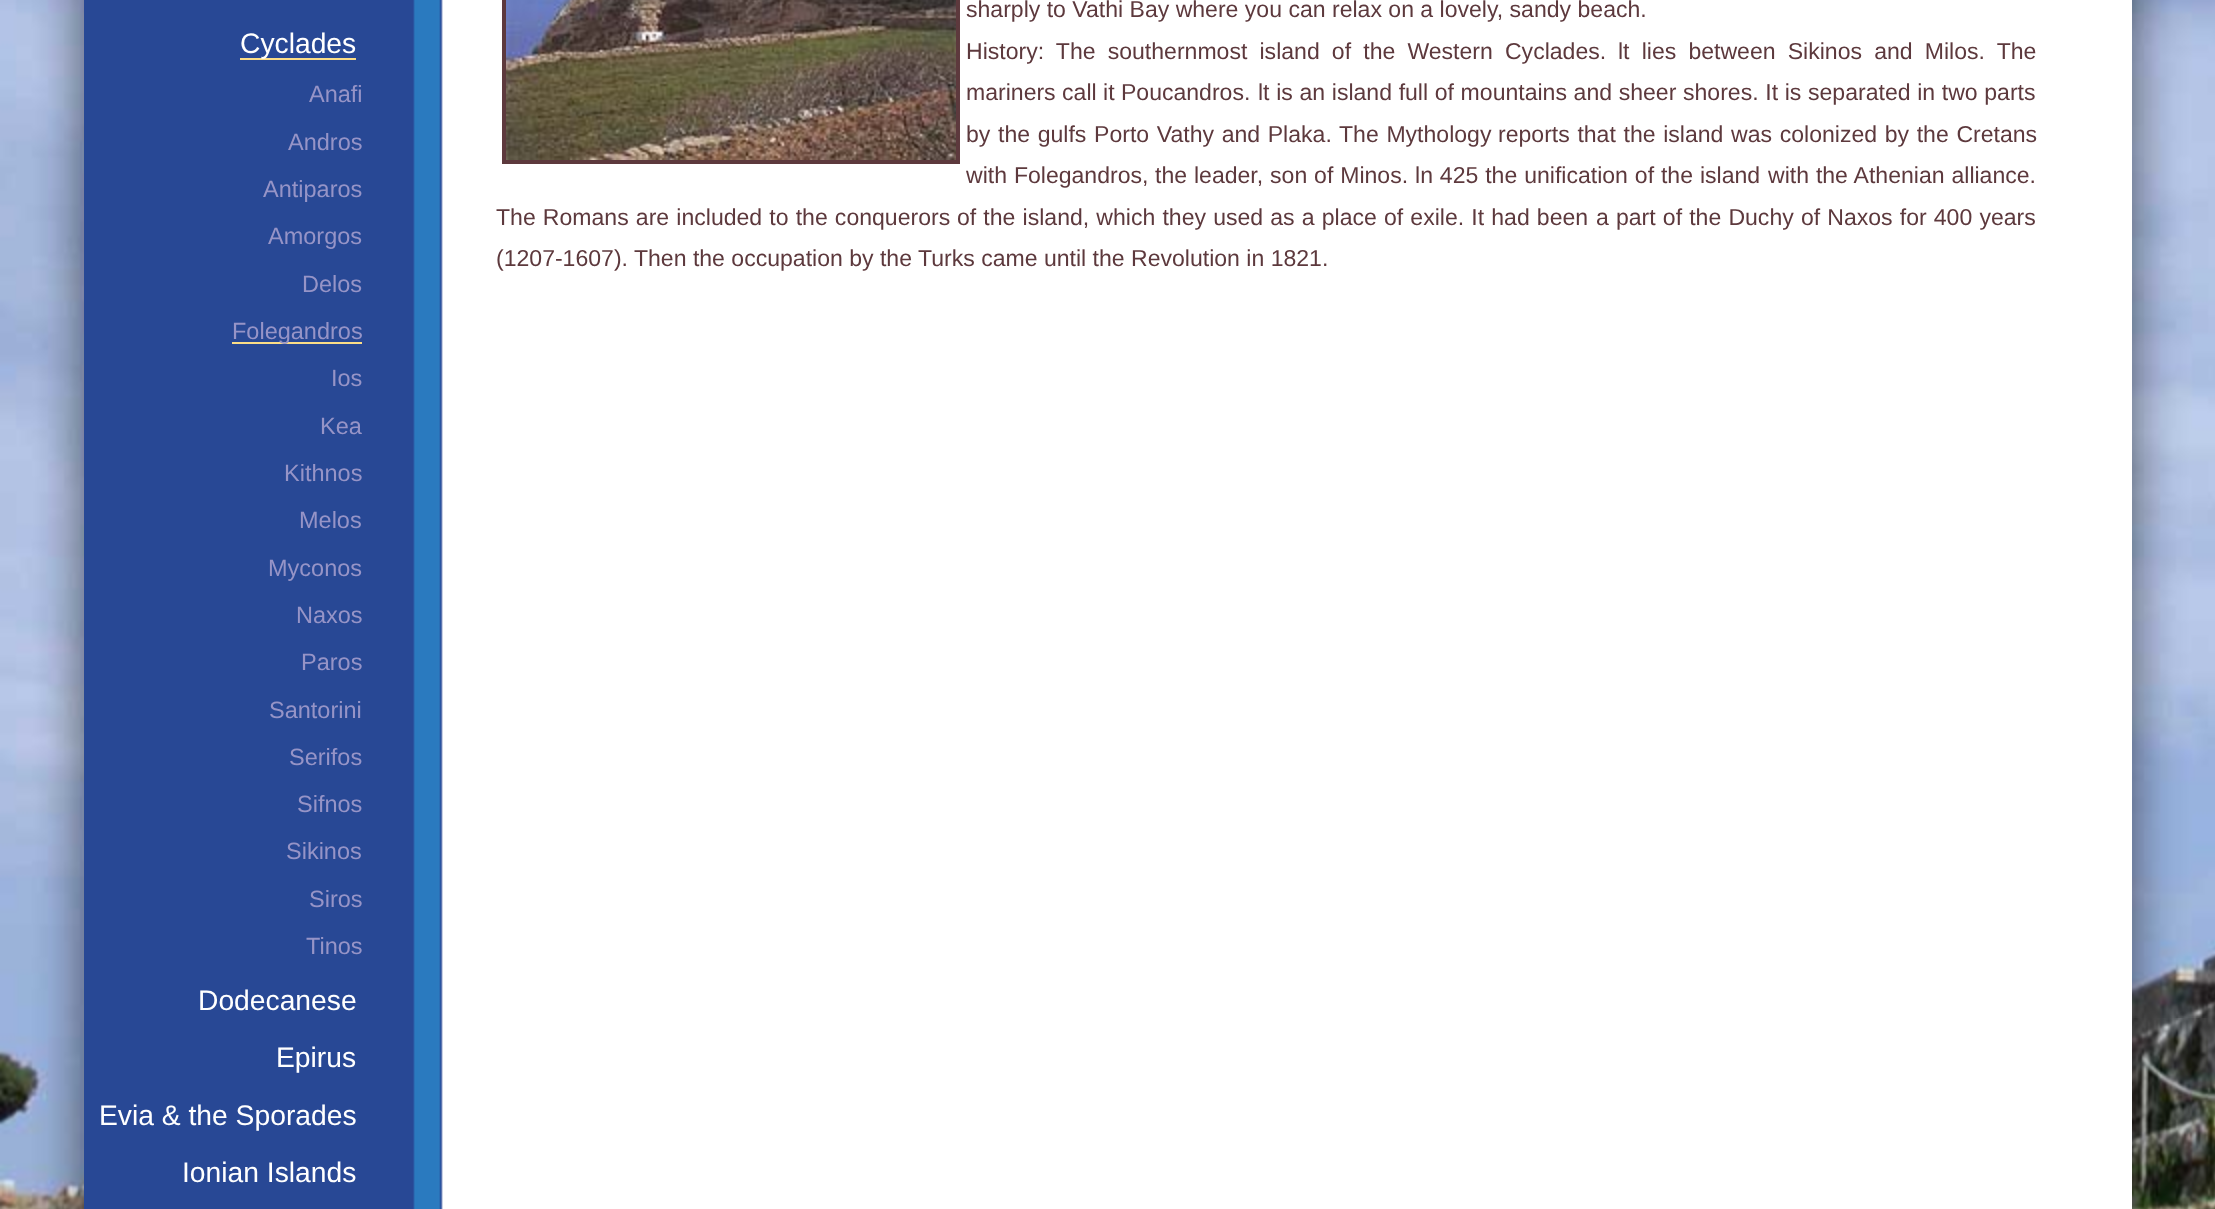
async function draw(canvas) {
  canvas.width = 2215;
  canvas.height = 1209;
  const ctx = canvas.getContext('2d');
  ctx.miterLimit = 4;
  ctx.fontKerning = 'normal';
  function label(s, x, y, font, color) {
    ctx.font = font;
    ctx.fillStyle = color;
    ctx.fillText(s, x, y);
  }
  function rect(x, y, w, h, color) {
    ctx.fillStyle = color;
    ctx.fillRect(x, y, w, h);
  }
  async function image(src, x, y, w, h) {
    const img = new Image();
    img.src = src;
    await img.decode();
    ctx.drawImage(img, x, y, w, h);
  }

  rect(0, 0, 2215, 1209, '#fff');
  await image('assets/img1.png', 0, 0, 2215, 1209);
  rect(443, 0, 1689, 1209, '#fff');
  await image('assets/img2.png', 84, 0, 359, 1209);
  rect(240, 58, 116, 2, '#fbdd87');
  label('Cyclades', 240, 53, '28.25px Liberation Sans', '#fff');
  label('Anafi', 309, 102, '23.5px Liberation Sans', '#9694c7');
  label('Andros', 288, 150, '23.5px Liberation Sans', '#9694c7');
  label('Antiparos', 263, 197, '23.5px Liberation Sans', '#9694c7');
  label('Amorgos', 268, 244, '23.5px Liberation Sans', '#9694c7');
  label('Delos', 302, 292, '23.5px Liberation Sans', '#9694c7');
  rect(232, 342, 130, 2, '#fbdd87');
  label('Folegandros', 232, 339, '23.5px Liberation Sans', '#9694c7');
  label('Ios', 331, 386, '23.5px Liberation Sans', '#9694c7');
  label('Kea', 320, 434, '23.5px Liberation Sans', '#9694c7');
  label('Kithnos', 284, 481, '23.5px Liberation Sans', '#9694c7');
  label('Melos', 299, 528, '23.5px Liberation Sans', '#9694c7');
  label('Myconos', 268, 576, '23.5px Liberation Sans', '#9694c7');
  label('Naxos', 296, 623, '23.5px Liberation Sans', '#9694c7');
  label('Paros', 301, 670, '23.5px Liberation Sans', '#9694c7');
  label('Santorini', 269, 718, '23.5px Liberation Sans', '#9694c7');
  label('Serifos', 289, 765, '23.5px Liberation Sans', '#9694c7');
  label('Sifnos', 297, 812, '23.5px Liberation Sans', '#9694c7');
  label('Sikinos', 286, 859, '23.5px Liberation Sans', '#9694c7');
  label('Siros', 309, 907, '23.5px Liberation Sans', '#9694c7');
  label('Tinos', 306, 954, '23.5px Liberation Sans', '#9694c7');
  label('Dodecanese', 198, 1010, '28.25px Liberation Sans', '#fff');
  label('Epirus', 276, 1067, '28.25px Liberation Sans', '#fff');
  label('Evia & the Sporades', 99, 1125, '28.25px Liberation Sans', '#fff');
  label('Ionian Islands', 182, 1182, '28.25px Liberation Sans', '#fff');
  ctx.strokeStyle = '#5d393d';
  ctx.lineWidth = 4;
  ctx.strokeRect(504, -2, 454, 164);
  await image('assets/img3.png', 506, 0, 450, 160);
  label('sharply to Vathi Bay where you can relax on a lovely, sandy beach.', 966, 17, '23.05px Liberation Sans', '#5d393d');
  ctx.wordSpacing = '5.75px';
  label('History: The southernmost island of the Western Cyclades.', 966, 59, '23.05px Liberation Sans', '#5d393d');
  label('lt lies between Sikinos and Milos. The', 1618, 59, '23.05px Liberation Sans', '#5d393d');
  ctx.wordSpacing = '0px';
  label('mariners call it Poucandros.', 966, 100, '23.05px Liberation Sans', '#5d393d');
  ctx.wordSpacing = '0.25px';
  label('lt is an island full of mountains and sheer shores. It is separated in two parts', 1258, 100, '23.05px Liberation Sans', '#5d393d');
  ctx.wordSpacing = '1.25px';
  label('by the gulfs Porto Vathy and Plaka. The Mythology', 966, 142, '23.05px Liberation Sans', '#5d393d');
  label('reports that the island was colonized by the Cretans', 1498, 142, '23.05px Liberation Sans', '#5d393d');
  ctx.wordSpacing = '0.5px';
  label('with Folegandros,', 966, 183, '23.05px Liberation Sans', '#5d393d');
  label('the leader, son of Minos. ln 425 the unification of the island', 1155, 183, '23.05px Liberation Sans', '#5d393d');
  label('with the Athenian alliance.', 1768, 183, '23.05px Liberation Sans', '#5d393d');
  ctx.wordSpacing = '0.75px';
  label('The Romans are included to the conquerors', 496, 225, '23.05px Liberation Sans', '#5d393d');
  label('of the island, which they used as a place of exile. It had been', 957, 225, '23.05px Liberation Sans', '#5d393d');
  label('a part of the Duchy of Naxos for 400 years', 1596, 225, '23.05px Liberation Sans', '#5d393d');
  ctx.wordSpacing = '0px';
  label('(1207-1607). Then the occupation by the Turks came until the Revolution in 1821.', 496, 266, '23.05px Liberation Sans', '#5d393d');
}

draw(document.querySelector('canvas'));
